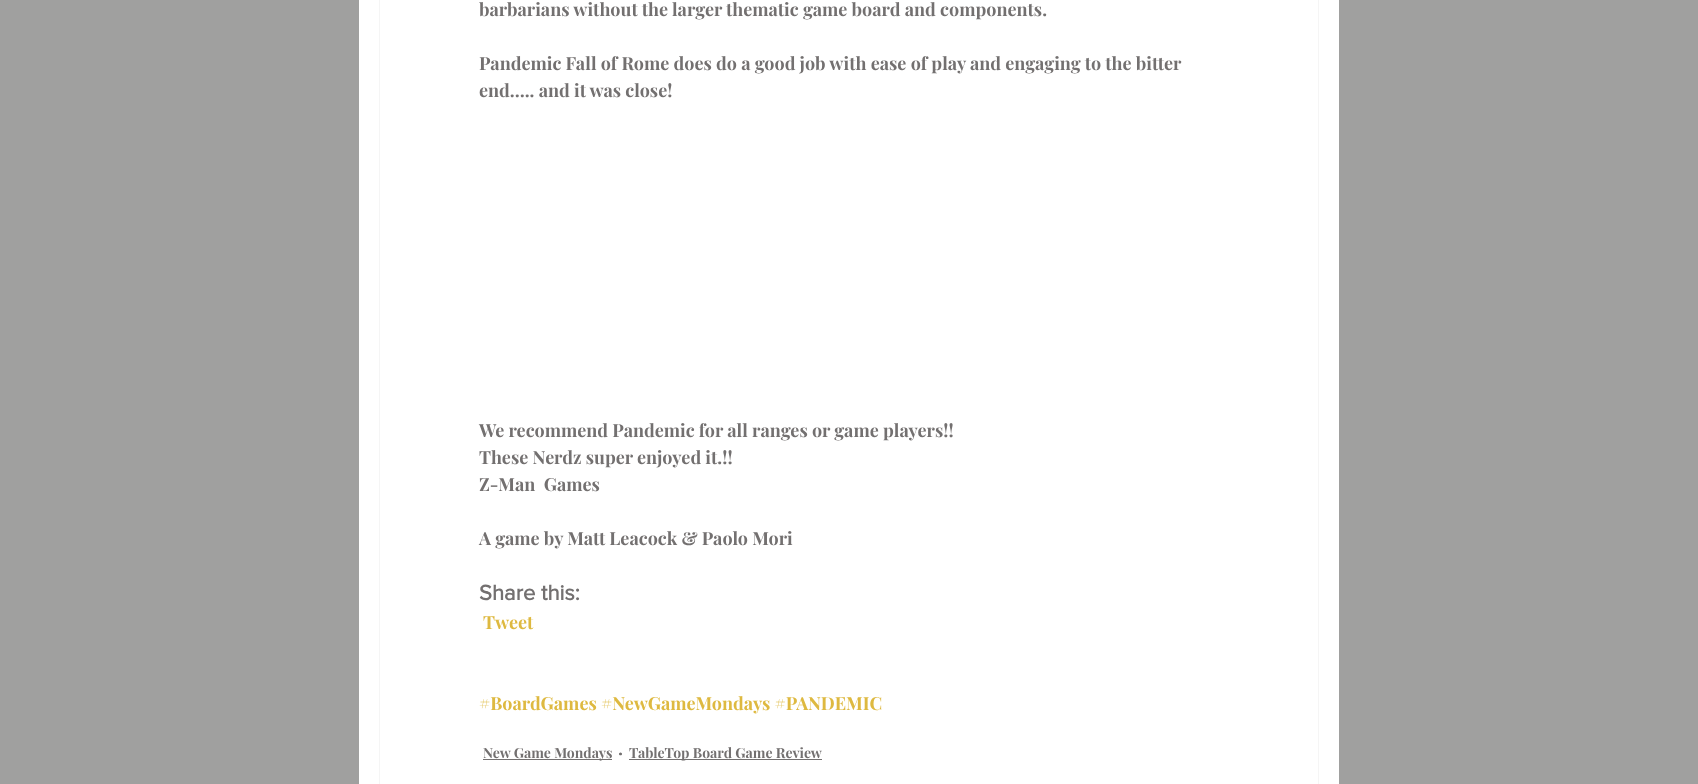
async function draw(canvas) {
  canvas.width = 1698;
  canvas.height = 784;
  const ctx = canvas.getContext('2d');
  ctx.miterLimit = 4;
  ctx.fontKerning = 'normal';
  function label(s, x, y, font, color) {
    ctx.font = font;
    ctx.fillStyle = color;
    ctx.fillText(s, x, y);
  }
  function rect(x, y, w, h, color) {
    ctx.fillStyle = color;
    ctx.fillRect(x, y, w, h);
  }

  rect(0, 0, 1698, 784, '#a0a09f');
  rect(359, 0, 980, 784, '#fff');
  ctx.strokeStyle = '#f5f5f5';
  ctx.strokeRect(379.5, -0.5, 939, 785);
  label('barbarians without the larger thematic game board and components.', 479, 16, 'bold 18px Playfair Display', '#737070');
  label('Pandemic Fall of Rome does do a good job with ease of play and engaging to the bitter', 479, 70, 'bold 18px Playfair Display', '#737070');
  label('end….. and it was close!', 479, 97, 'bold 18px Playfair Display', '#737070');
  label('We recommend Pandemic for all ranges or game players!!', 479, 437, 'bold 18px Playfair Display', '#737070');
  label('These Nerdz super enjoyed it.!!', 479, 464, 'bold 18px Playfair Display', '#737070');
  label('Z-Man  Games', 479, 491, 'bold 18px Playfair Display', '#737070');
  label('A game by Matt Leacock & Paolo Mori', 479, 545, 'bold 18px Playfair Display', '#737070');
  label('Share this:', 479, 600, 'bold 22px "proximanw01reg"', '#737070');
  label('Tweet', 483, 629, 'bold 18px Playfair Display', '#deb940');
  label('#BoardGames #NewGameMondays #PANDEMIC', 479, 710, 'bold 18px Playfair Display', '#deb940');
  rect(483, 759, 129, 1, '#737070');
  label('New Game Mondays', 483, 758, 'bold 14px Playfair Display', '#737070');
  label('·', 618, 759, 'bold 18px Playfair Display', '#737070');
  rect(629, 759, 193, 1, '#737070');
  label('TableTop Board Game Review', 629, 758, 'bold 14px Playfair Display', '#737070');
}

draw(document.querySelector('canvas'));
